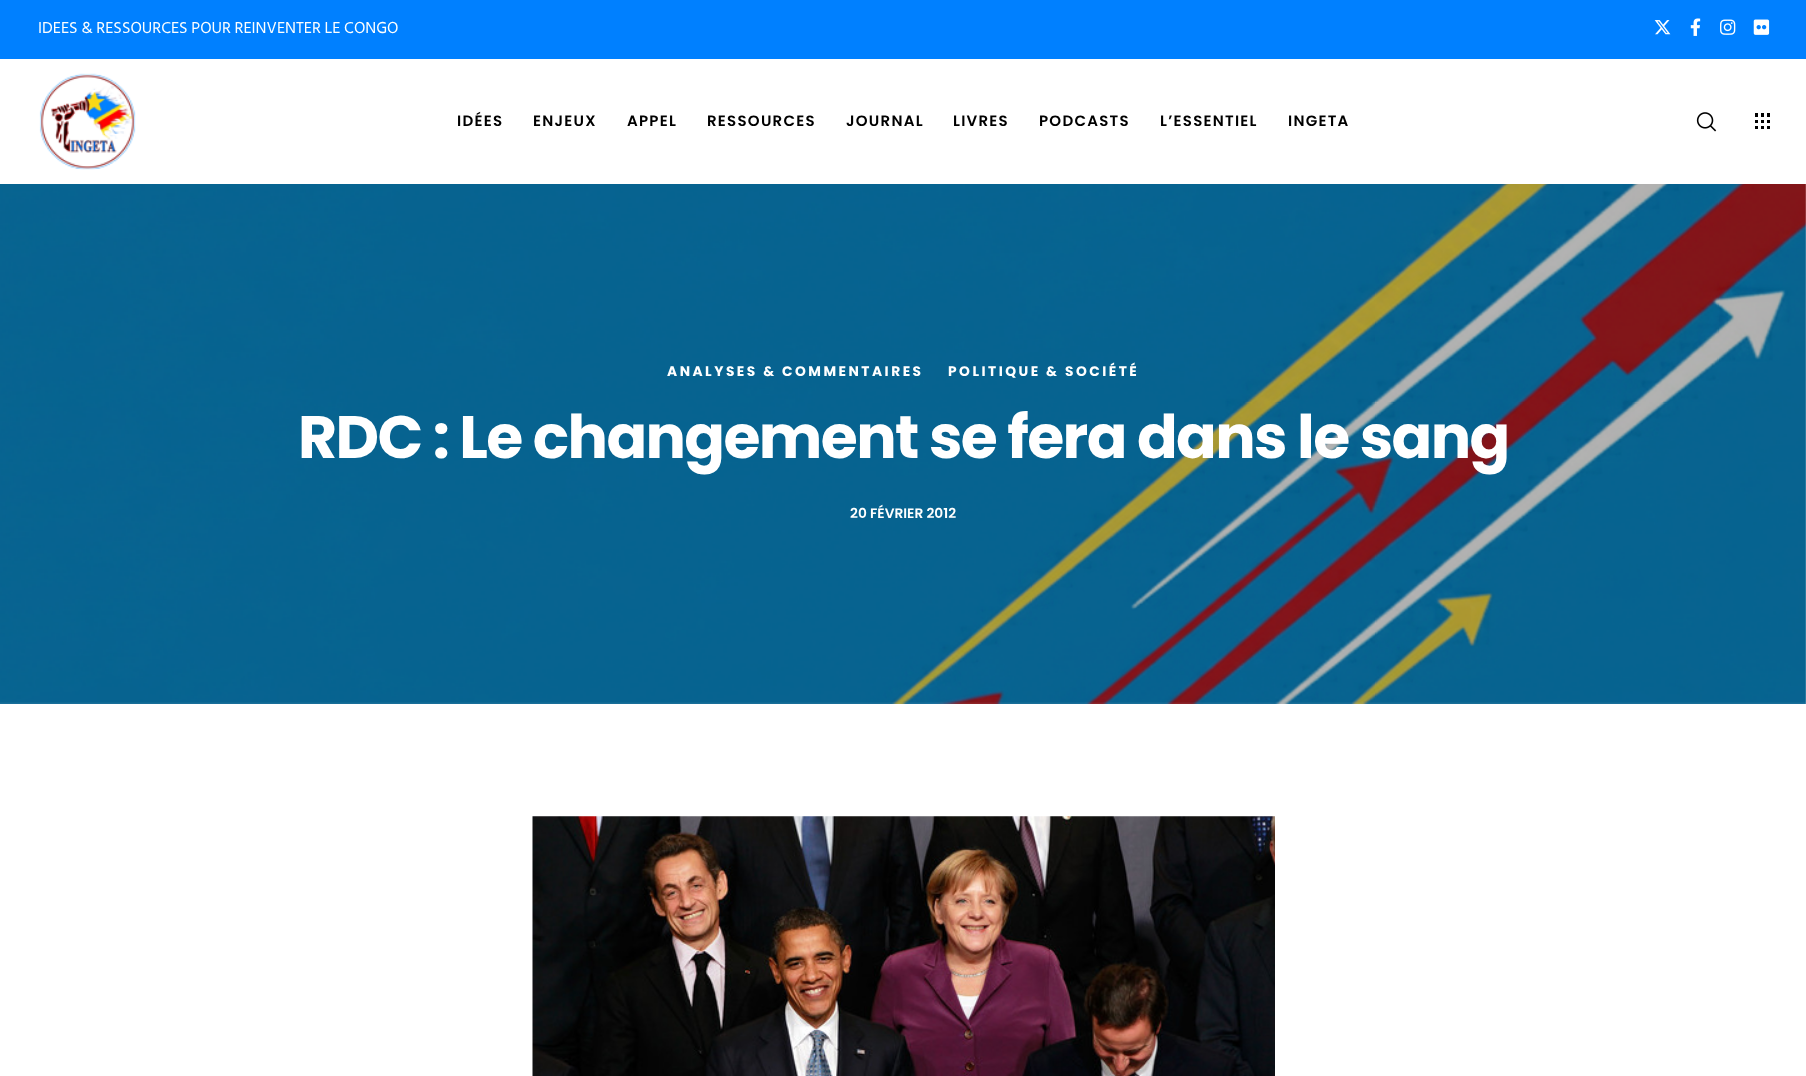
async function draw(canvas) {
  canvas.width = 1806;
  canvas.height = 1076;
  const ctx = canvas.getContext('2d');
  ctx.miterLimit = 4;
  ctx.fontKerning = 'normal';
  function label(s, x, y, font, color) {
    ctx.font = font;
    ctx.fillStyle = color;
    ctx.fillText(s, x, y);
  }
  function rect(x, y, w, h, color) {
    ctx.fillStyle = color;
    ctx.fillRect(x, y, w, h);
  }
  async function image(src, x, y, w, h) {
    const img = new Image();
    img.src = src;
    await img.decode();
    ctx.drawImage(img, x, y, w, h);
  }

  rect(0, 0, 1806, 1076, '#fff');
  rect(0, 0, 1806, 59, '#0080ff');
  label('IDEES & RESSOURCES POUR REINVENTER LE CONGO', 38, 33, '16.25px Hind Siliguri', '#fff');
  await image('assets/img1.png', 1654, 20, 17, 15);
  await image('assets/img2.png', 1690, 18, 11, 18);
  await image('assets/img3.png', 1720, 19, 16, 16);
  await image('assets/img4.png', 1753, 19, 17, 16);
  await image('assets/img5.png', 39, 73, 97, 97);
  ctx.letterSpacing = '1.25px';
  label('IDÉES', 457, 126, '600 15px Poppins', '#000');
  label('ENJEUX', 533, 126, '600 15px Poppins', '#000');
  label('APPEL', 627, 126, '600 15px Poppins', '#000');
  label('RESSOURCES', 707, 126, '600 15px Poppins', '#000');
  label('JOURNAL', 846, 126, '600 15px Poppins', '#000');
  label('LIVRES', 953, 126, '600 15px Poppins', '#000');
  label('PODCASTS', 1039, 126, '600 15px Poppins', '#000');
  label('L’ESSENTIEL', 1160, 126, '600 15px Poppins', '#000');
  label('INGETA', 1288, 126, '600 15px Poppins', '#000');
  await image('assets/img6.png', 1696, 112, 21, 20);
  await image('assets/img7.png', 1755, 113, 15, 16);
  await image('assets/img8.png', 0, 184, 1806, 520);
  ctx.letterSpacing = '2.5px';
  label('ANALYSES & COMMENTAIRES', 667, 376, 'bold 13.75px Poppins', '#fff');
  label('POLITIQUE & SOCIÉTÉ', 948, 376, 'bold 13.75px Poppins', '#fff');
  ctx.letterSpacing = '-1.6px';
  label('RDC : Le changement se fera dans le sang', 298, 458, 'bold 60px Poppins', '#fff');
  ctx.letterSpacing = '0px';
  label('20 FÉVRIER 2012', 850, 518, '600 13.75px Poppins', '#fff');
  await image('assets/img9.png', 532, 816, 743, 260);
}

draw(document.querySelector('canvas'));
